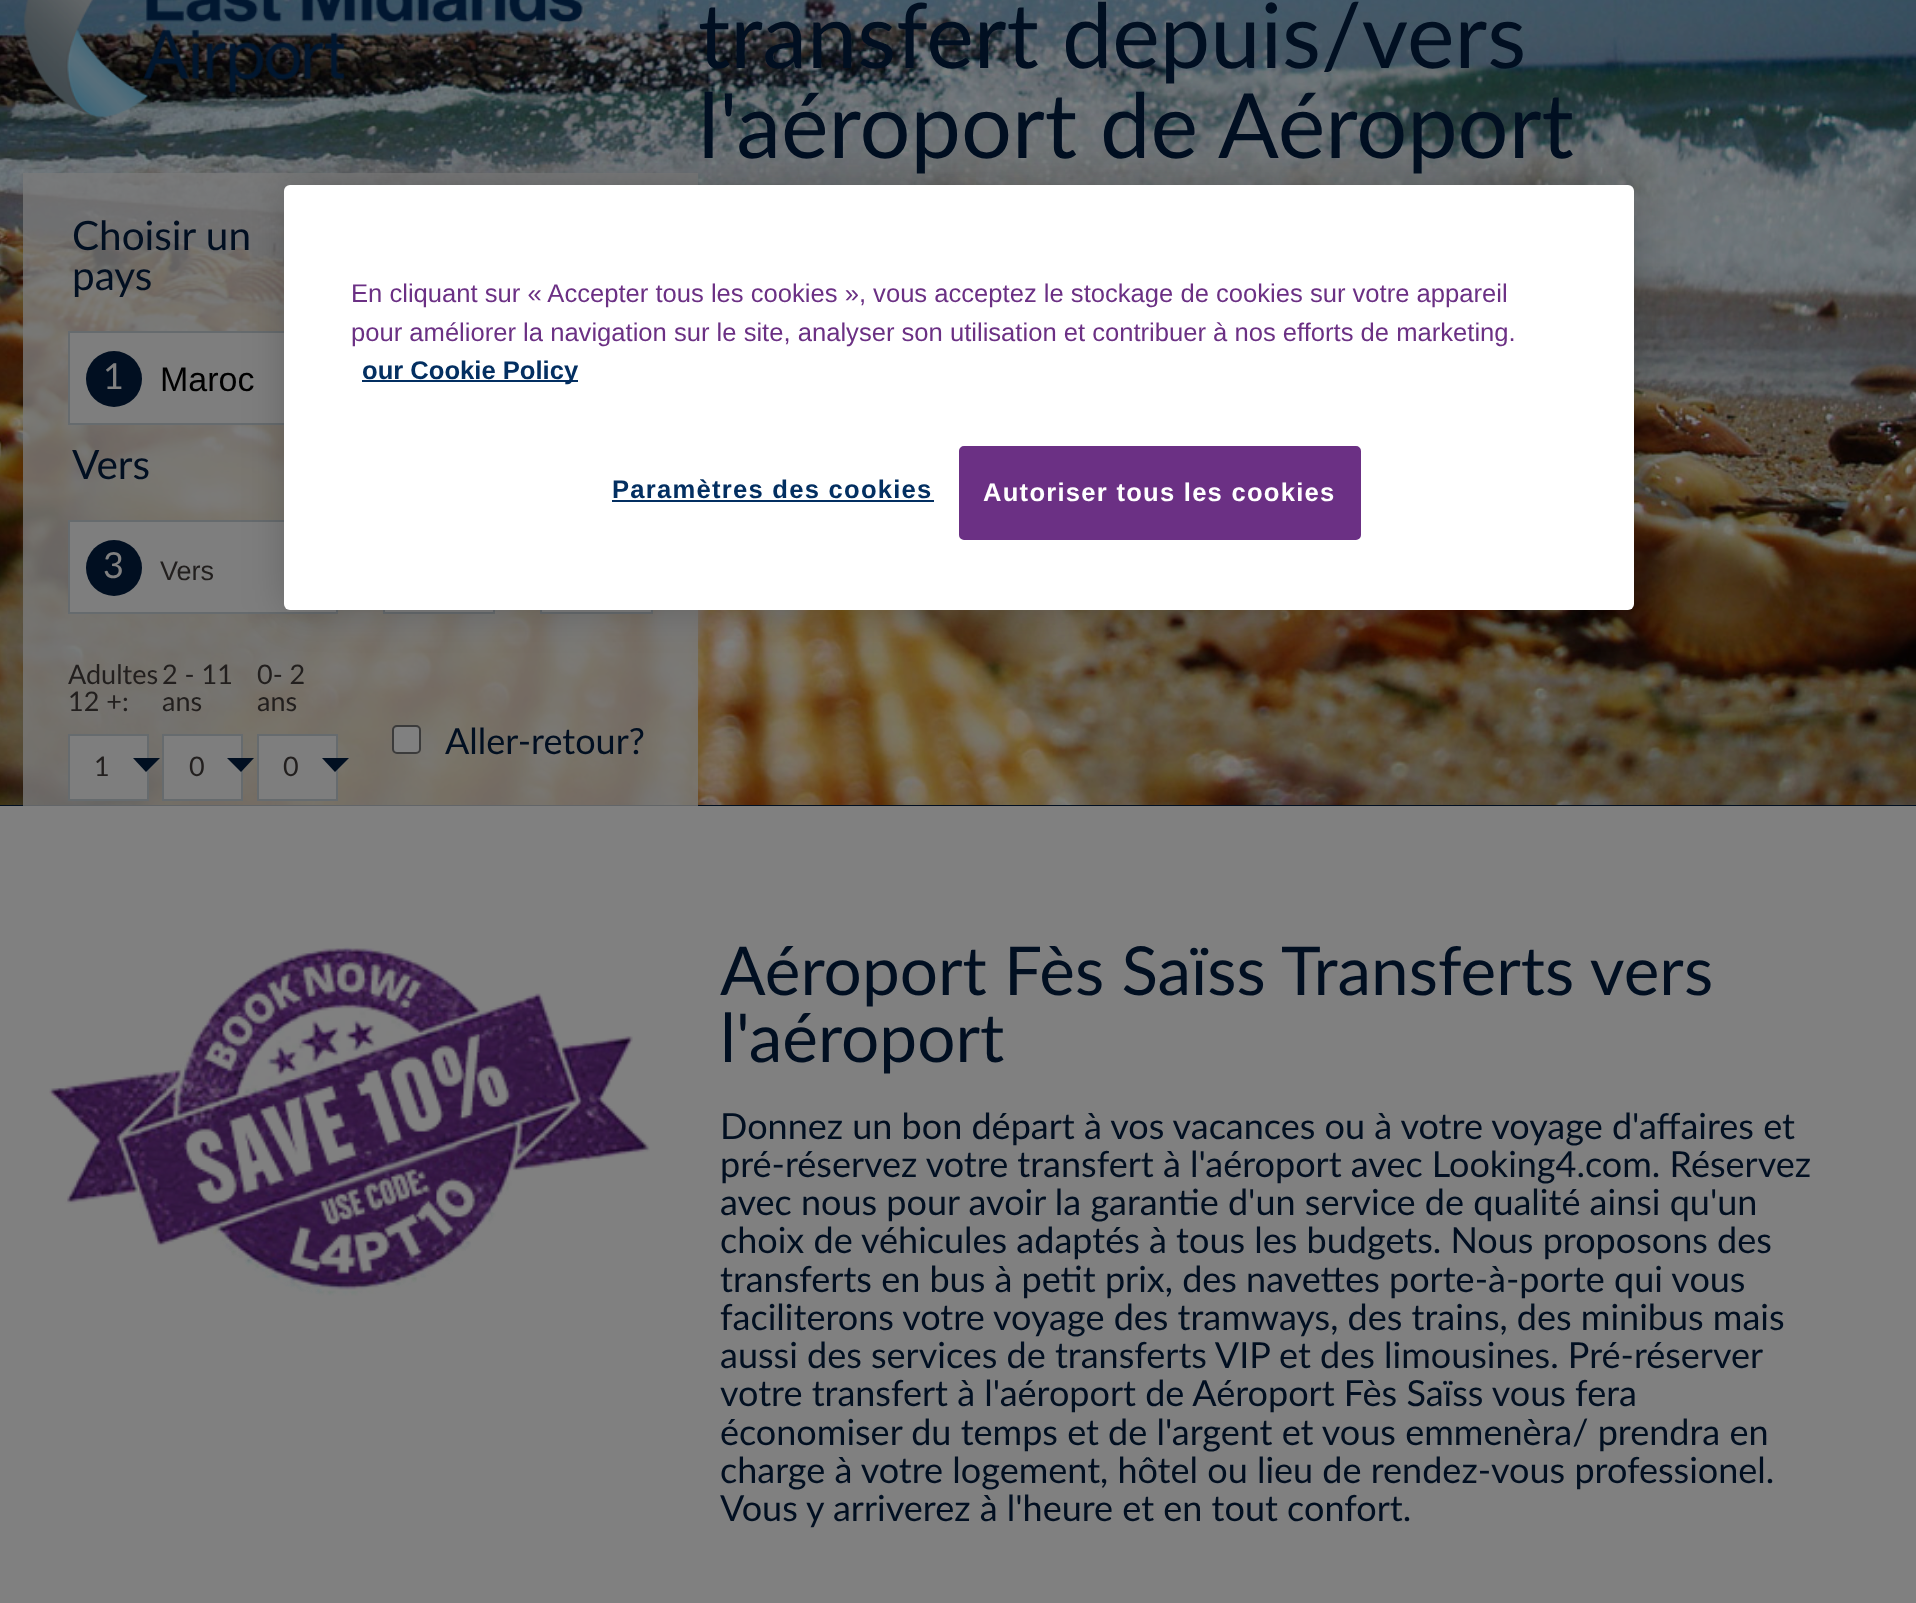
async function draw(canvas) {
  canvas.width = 1916;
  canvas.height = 1603;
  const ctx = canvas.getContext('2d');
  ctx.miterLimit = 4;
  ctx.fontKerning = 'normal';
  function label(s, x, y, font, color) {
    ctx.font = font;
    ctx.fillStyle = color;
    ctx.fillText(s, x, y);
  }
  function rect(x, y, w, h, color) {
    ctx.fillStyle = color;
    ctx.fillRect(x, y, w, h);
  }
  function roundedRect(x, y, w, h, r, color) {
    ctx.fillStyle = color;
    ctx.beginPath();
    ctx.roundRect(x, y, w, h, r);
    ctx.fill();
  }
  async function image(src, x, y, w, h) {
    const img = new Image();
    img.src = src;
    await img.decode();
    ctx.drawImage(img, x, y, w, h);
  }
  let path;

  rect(0, 0, 1916, 1603, '#010f21');
  await image('assets/img1.png', 0, 0, 1916, 805);
  await image('assets/img2.png', 23, 0, 560, 118);
  label('transfert depuis/vers', 698, 68, '90px Lato', '#010f21');
  label('l\'aéroport de Aéroport', 698, 158, '90px Lato', '#010f21');
  rect(23, 173, 675, 633, '#7b7b7bcc');
  label('Choisir un', 72, 250, '40.5px Lato', '#010f21');
  label('pays', 72, 290, '40.5px Lato', '#010f21');
  rect(70, 333, 214, 90, '#7e7e7e');
  ctx.strokeStyle = '#666b6e';
  ctx.lineWidth = 2;
  ctx.strokeRect(69, 332, 268, 92);
  ctx.fillStyle = '#010f21';
  ctx.beginPath();
  ctx.arc(114, 379, 28, 0, 2 * Math.PI);
  ctx.fill();
  label('1', 103, 389, '36px Lato', '#808080');
  label('Maroc', 160, 391, '34px Liberation Sans', '#000');
  label('Vers', 72, 479, '40.5px Lato', '#010f21');
  ctx.fillStyle = '#7e7e7e';
  ctx.beginPath();
  ctx.rect(69, 521, 268, 92);
  ctx.fill();
  ctx.stroke();
  ctx.fillStyle = '#010f21';
  ctx.beginPath();
  ctx.arc(114, 568, 28, 0, 2 * Math.PI);
  ctx.fill();
  label('3', 103, 578, '36px Lato', '#808080');
  label('Vers', 160, 580, '27px Liberation Sans', '#221f1e');
  rect(385, 610, 108, 2, '#7e7e7e');
  ctx.strokeRect(384, 521, 110, 92);
  rect(542, 610, 109, 2, '#7e7e7e');
  ctx.strokeRect(541, 521, 111, 92);
  label('Adultes', 68, 684, '27px Lato', '#221f1e');
  label('12 +:', 68, 711, '27px Lato', '#221f1e');
  label('2 - 11', 162, 684, '27px Lato', '#221f1e');
  label('ans', 162, 711, '27px Lato', '#221f1e');
  label('0- 2', 257, 684, '27px Lato', '#221f1e');
  label('ans', 257, 711, '27px Lato', '#221f1e');
  ctx.fillStyle = '#7e7e7e';
  ctx.beginPath();
  ctx.rect(69, 735, 79, 65);
  ctx.fill();
  ctx.stroke();
  label('1', 94, 776, '27px Lato', '#221f1e');
  ctx.fillStyle = '#010f21';
  path = new Path2D('M133 758H160L146 772Z');
  ctx.fill(path);
  ctx.fillStyle = '#7e7e7e';
  ctx.beginPath();
  ctx.rect(163, 735, 79, 65);
  ctx.fill();
  ctx.stroke();
  label('0', 189, 776, '27px Lato', '#221f1e');
  ctx.fillStyle = '#010f21';
  path = new Path2D('M227 758H254L241 772Z');
  ctx.fill(path);
  ctx.fillStyle = '#7e7e7e';
  ctx.beginPath();
  ctx.rect(258, 735, 79, 65);
  ctx.fill();
  ctx.stroke();
  label('0', 283, 776, '27px Lato', '#221f1e');
  ctx.fillStyle = '#010f21';
  path = new Path2D('M322 758H349L335 772Z');
  ctx.fill(path);
  ctx.fillStyle = '#808080';
  ctx.beginPath();
  ctx.roundRect(393, 726, 27, 27, 4);
  ctx.fill();
  ctx.strokeStyle = '#3b3b3b';
  ctx.stroke();
  label('Aller-retour?', 445, 754, '36px Lato', '#010f21');
  ctx.fillStyle = '#00000033';
  ctx.filter = 'blur(20px)';
  ctx.beginPath();
  ctx.roundRect(284, 185, 1350, 425, 6);
  ctx.fill();
  ctx.filter = 'none';
  roundedRect(284, 185, 1350, 425, 6, '#fff');
  label('En cliquant sur « Accepter tous les cookies », vous acceptez le stockage de cookies sur votre appareil', 351, 302, '25.6px Liberation Sans', '#6b3084');
  label('pour améliorer la navigation sur le site, analyser son utilisation et contribuer à nos efforts de marketing.', 351, 341, '25.6px Liberation Sans', '#6b3084');
  rect(362, 380, 216, 2, '#032f61');
  label('our Cookie Policy', 362, 379, 'bold 25.6px Liberation Sans', '#032f61');
  ctx.letterSpacing = '1.25px';
  label('Paramètres des cookies', 612, 498, 'bold 25.6px Liberation Sans', '#032f61');
  rect(612, 500, 322, 2, '#032f61');
  ctx.fillStyle = '#6b3084';
  ctx.beginPath();
  ctx.roundRect(960, 447, 400, 92, 4);
  ctx.fill();
  ctx.strokeStyle = '#6b3084';
  ctx.stroke();
  label('Autoriser tous les cookies', 983, 501, 'bold 25.6px Liberation Sans', '#fff');
  rect(0, 806, 1916, 797, '#808080');
  await image('assets/img3.png', 49, 947, 601, 349);
  ctx.letterSpacing = '0px';
  label('Aéroport Fès Saïss Transferts vers', 720, 995, '67.5px Lato', '#010f21');
  label('l\'aéroport', 720, 1062, '67.5px Lato', '#010f21');
  label('Donnez un bon départ à vos vacances ou à votre voyage d\'affaires et', 720, 1139, '36px Lato', '#010f21');
  label('pré-réservez votre transfert à l\'aéroport avec Looking4.com. Réservez', 720, 1177, '36px Lato', '#010f21');
  label('avec nous pour avoir la garantie d\'un service de qualité ainsi qu\'un', 720, 1215, '36px Lato', '#010f21');
  label('choix de véhicules adaptés à tous les budgets. Nous proposons des', 720, 1253, '36px Lato', '#010f21');
  label('transferts en bus à petit prix, des navettes porte-à-porte qui vous', 720, 1292, '36px Lato', '#010f21');
  label('faciliterons votre voyage des tramways, des trains, des minibus mais', 720, 1330, '36px Lato', '#010f21');
  label('aussi des services de transferts VIP et des limousines. Pré-réserver', 720, 1368, '36px Lato', '#010f21');
  label('votre transfert à l\'aéroport de Aéroport Fès Saïss vous fera', 720, 1406, '36px Lato', '#010f21');
  label('économiser du temps et de l\'argent et vous emmenèra/ prendra en', 720, 1445, '36px Lato', '#010f21');
  label('charge à votre logement, hôtel ou lieu de rendez-vous professionel.', 720, 1483, '36px Lato', '#010f21');
  label('Vous y arriverez à l\'heure et en tout confort.', 720, 1521, '36px Lato', '#010f21');
}

draw(document.querySelector('canvas'));
